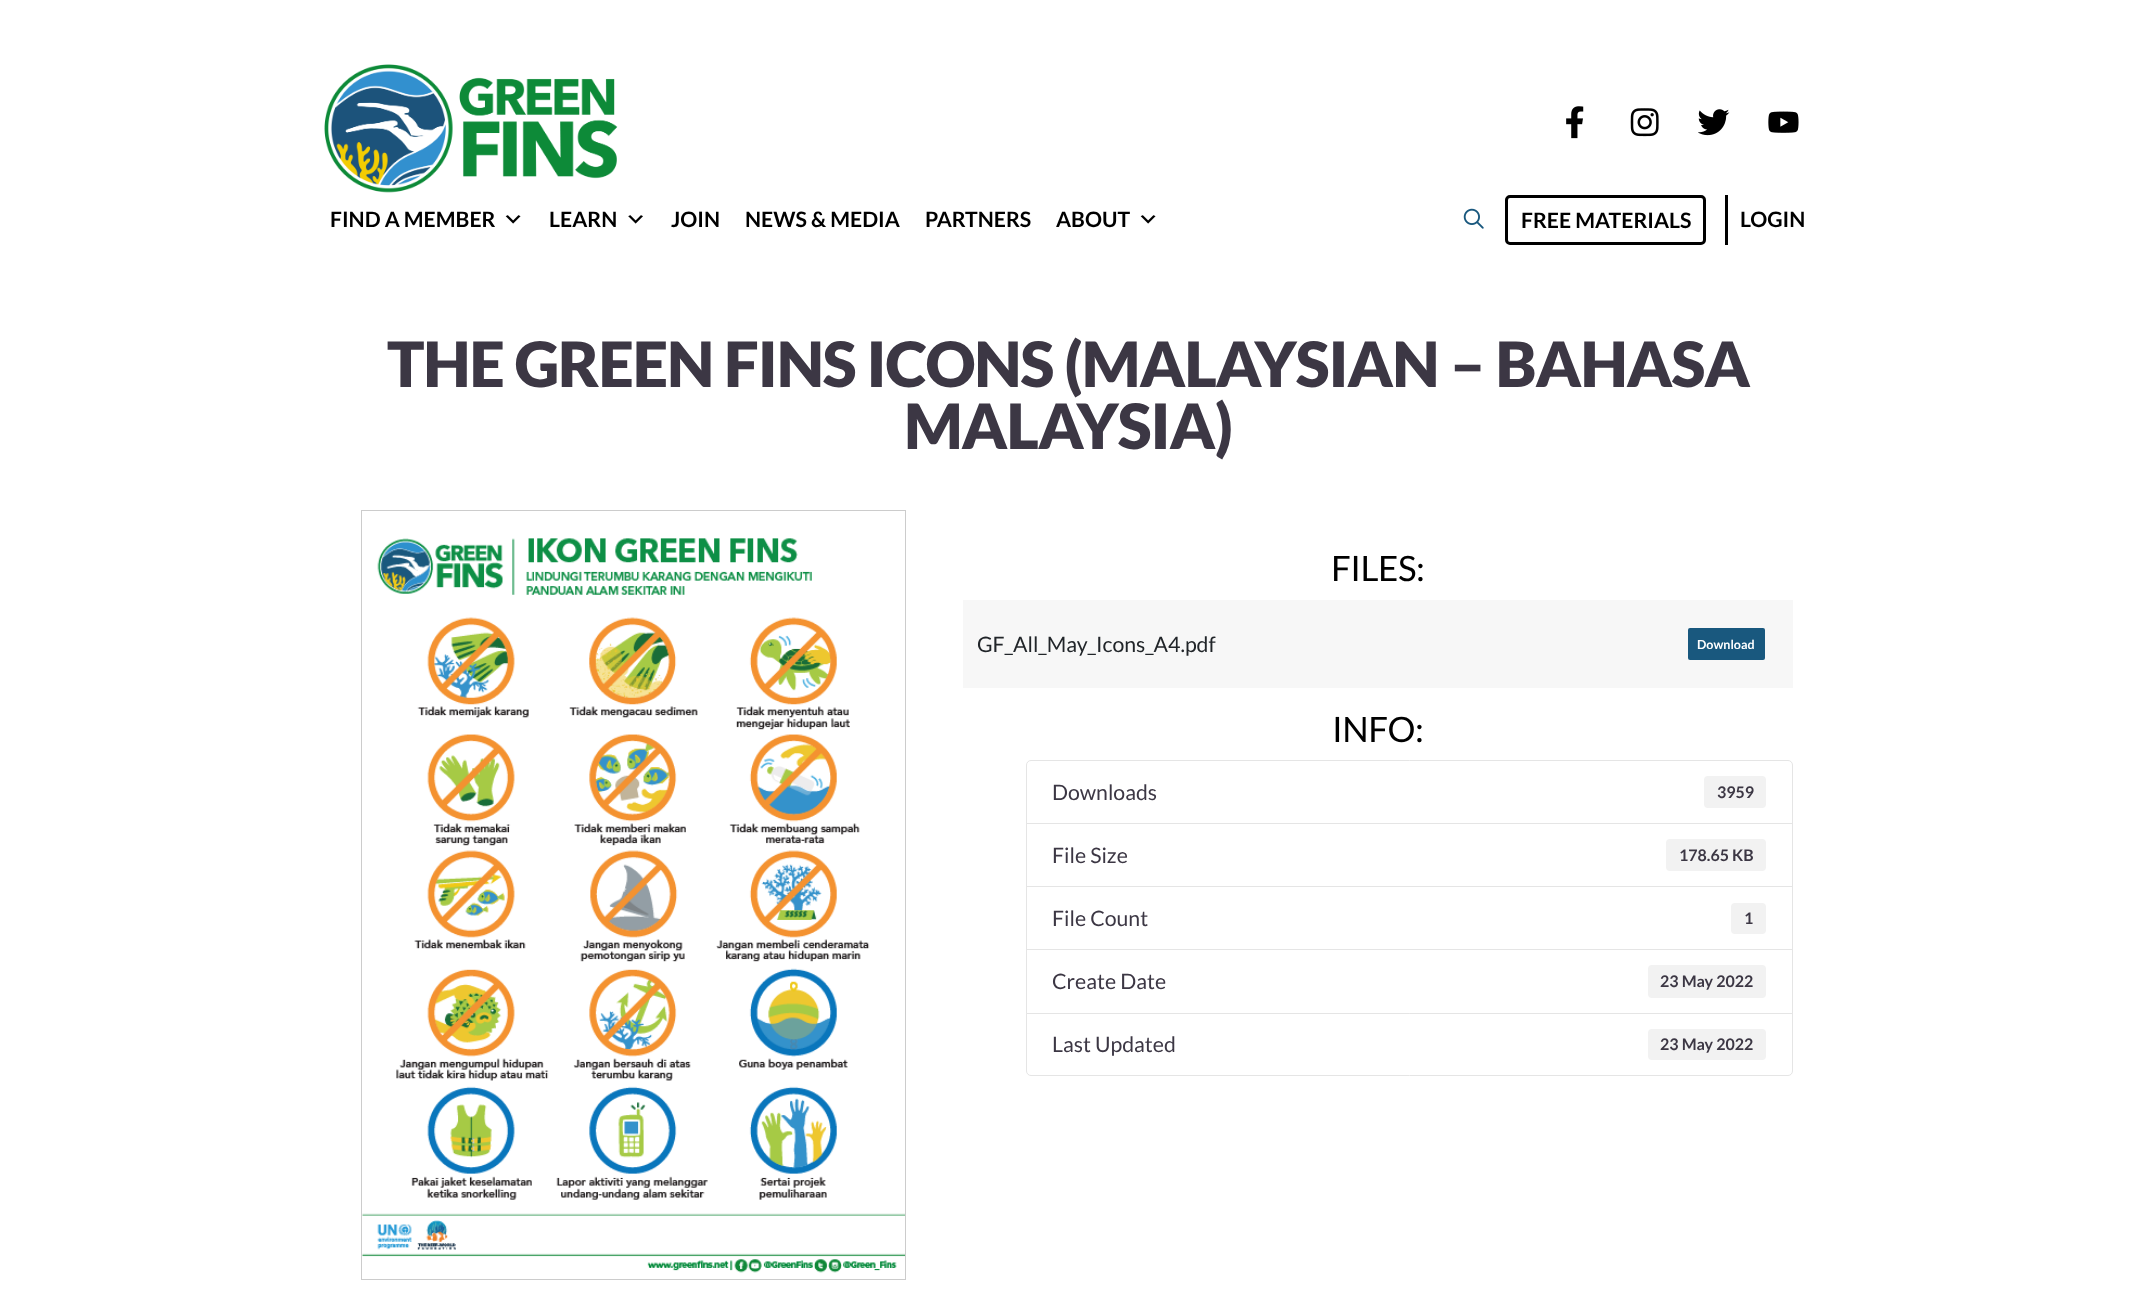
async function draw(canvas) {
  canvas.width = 2134;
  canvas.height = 1291;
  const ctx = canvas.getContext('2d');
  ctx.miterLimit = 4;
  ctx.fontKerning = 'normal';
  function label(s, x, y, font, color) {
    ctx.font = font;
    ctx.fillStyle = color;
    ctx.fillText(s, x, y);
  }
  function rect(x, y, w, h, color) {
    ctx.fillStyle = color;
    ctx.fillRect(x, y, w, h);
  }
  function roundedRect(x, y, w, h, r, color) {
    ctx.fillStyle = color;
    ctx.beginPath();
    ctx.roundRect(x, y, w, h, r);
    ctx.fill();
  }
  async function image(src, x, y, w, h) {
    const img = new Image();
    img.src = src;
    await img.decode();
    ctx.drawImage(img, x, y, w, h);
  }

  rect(0, 0, 2134, 1291, '#fff');
  await image('assets/img1.png', 324, 64, 294, 129);
  await image('assets/img2.png', 1566, 106, 18, 33);
  await image('assets/img3.png', 1630, 108, 29, 29);
  await image('assets/img4.png', 1698, 109, 32, 27);
  await image('assets/img5.png', 1768, 111, 31, 22);
  label('FIND A MEMBER', 330, 227, 'bold 21.25px Lato', '#000');
  await image('assets/img6.png', 505, 215, 16, 9);
  label('LEARN', 549, 227, 'bold 21.25px Lato', '#000');
  await image('assets/img7.png', 628, 215, 15, 9);
  label('JOIN', 671, 227, 'bold 21.25px Lato', '#000');
  label('NEWS & MEDIA', 745, 227, 'bold 21.25px Lato', '#000');
  label('PARTNERS', 925, 227, 'bold 21.25px Lato', '#000');
  label('ABOUT', 1056, 227, 'bold 21.25px Lato', '#000');
  await image('assets/img6.png', 1140, 215, 16, 9);
  await image('assets/img8.png', 1463, 208, 21, 21);
  ctx.beginPath();
  ctx.roundRect(1506.5, 196.5, 198, 47, 3.5);
  ctx.strokeStyle = '#000';
  ctx.lineWidth = 3;
  ctx.stroke();
  label('FREE MATERIALS', 1521, 228, 'bold 21.25px Lato', '#000');
  rect(1725, 195, 3, 50, '#000');
  label('LOGIN', 1740, 227, 'bold 21.25px Lato', '#000');
  ctx.letterSpacing = '-1.1px';
  label('THE GREEN FINS ICONS (MALAYSIAN – BAHASA', 387, 387, '900 62.5px Lato', '#3c3744');
  label('MALAYSIA)', 904, 449, '900 62.5px Lato', '#3c3744');
  ctx.strokeStyle = '#ccc';
  ctx.lineWidth = 1;
  ctx.strokeRect(361.5, 510.5, 544, 769);
  await image('assets/img9.png', 362, 538, 543, 735);
  ctx.letterSpacing = '-0.5px';
  label('FILES:', 1331, 581, '35px Lato', '#000');
  rect(963, 600, 830, 88, '#f7f7f7');
  ctx.letterSpacing = '0px';
  label('GF_All_May_Icons_A4.pdf', 977, 652, '21.25px Lato', '#212529');
  roundedRect(1688, 628, 77, 32, 2, '#19587e');
  label('Download', 1697, 649, 'bold 12.5px Lato', '#fff');
  ctx.letterSpacing = '-0.5px';
  label('INFO:', 1332, 742, '35px Lato', '#000');
  ctx.beginPath();
  ctx.roundRect(1026.5, 760.5, 766, 63, [4.5, 4.5, 0, 0]);
  ctx.strokeStyle = '#e5e5e5';
  ctx.stroke();
  ctx.letterSpacing = '0px';
  label('Downloads', 1052, 800, '21.25px Lato', '#3c3744');
  roundedRect(1704, 776, 62, 32, 4, '#f2f2f2');
  label('3959', 1717, 798, 'bold 16px Lato', '#3c3744');
  ctx.strokeRect(1026.5, 823.5, 766, 64);
  label('File Size', 1052, 863, '21.25px Lato', '#3c3744');
  roundedRect(1666, 839, 100, 32, 4, '#f2f2f2');
  label('178.65 KB', 1679, 861, 'bold 16px Lato', '#3c3744');
  rect(1027, 887, 765, 1, '#fff');
  ctx.strokeRect(1026.5, 886.5, 766, 63);
  label('File Count', 1052, 926, '21.25px Lato', '#3c3744');
  roundedRect(1731, 903, 35, 31, 4, '#f2f2f2');
  label('1', 1744, 924, 'bold 16px Lato', '#3c3744');
  ctx.strokeRect(1026.5, 949.5, 766, 64);
  label('Create Date', 1052, 989, '21.25px Lato', '#3c3744');
  roundedRect(1648, 965, 118, 33, 4, '#f2f2f2');
  label('23 May 2022', 1660, 987, 'bold 16px Lato', '#3c3744');
  ctx.fillStyle = '#fff';
  ctx.beginPath();
  ctx.roundRect(1026.5, 1013.5, 766, 62, [0, 0, 4.5, 4.5]);
  ctx.fill();
  ctx.stroke();
  label('Last Updated', 1052, 1052, '21.25px Lato', '#3c3744');
  roundedRect(1648, 1029, 118, 31, 4, '#f2f2f2');
  label('23 May 2022', 1660, 1050, 'bold 16px Lato', '#3c3744');
}

draw(document.querySelector('canvas'));
